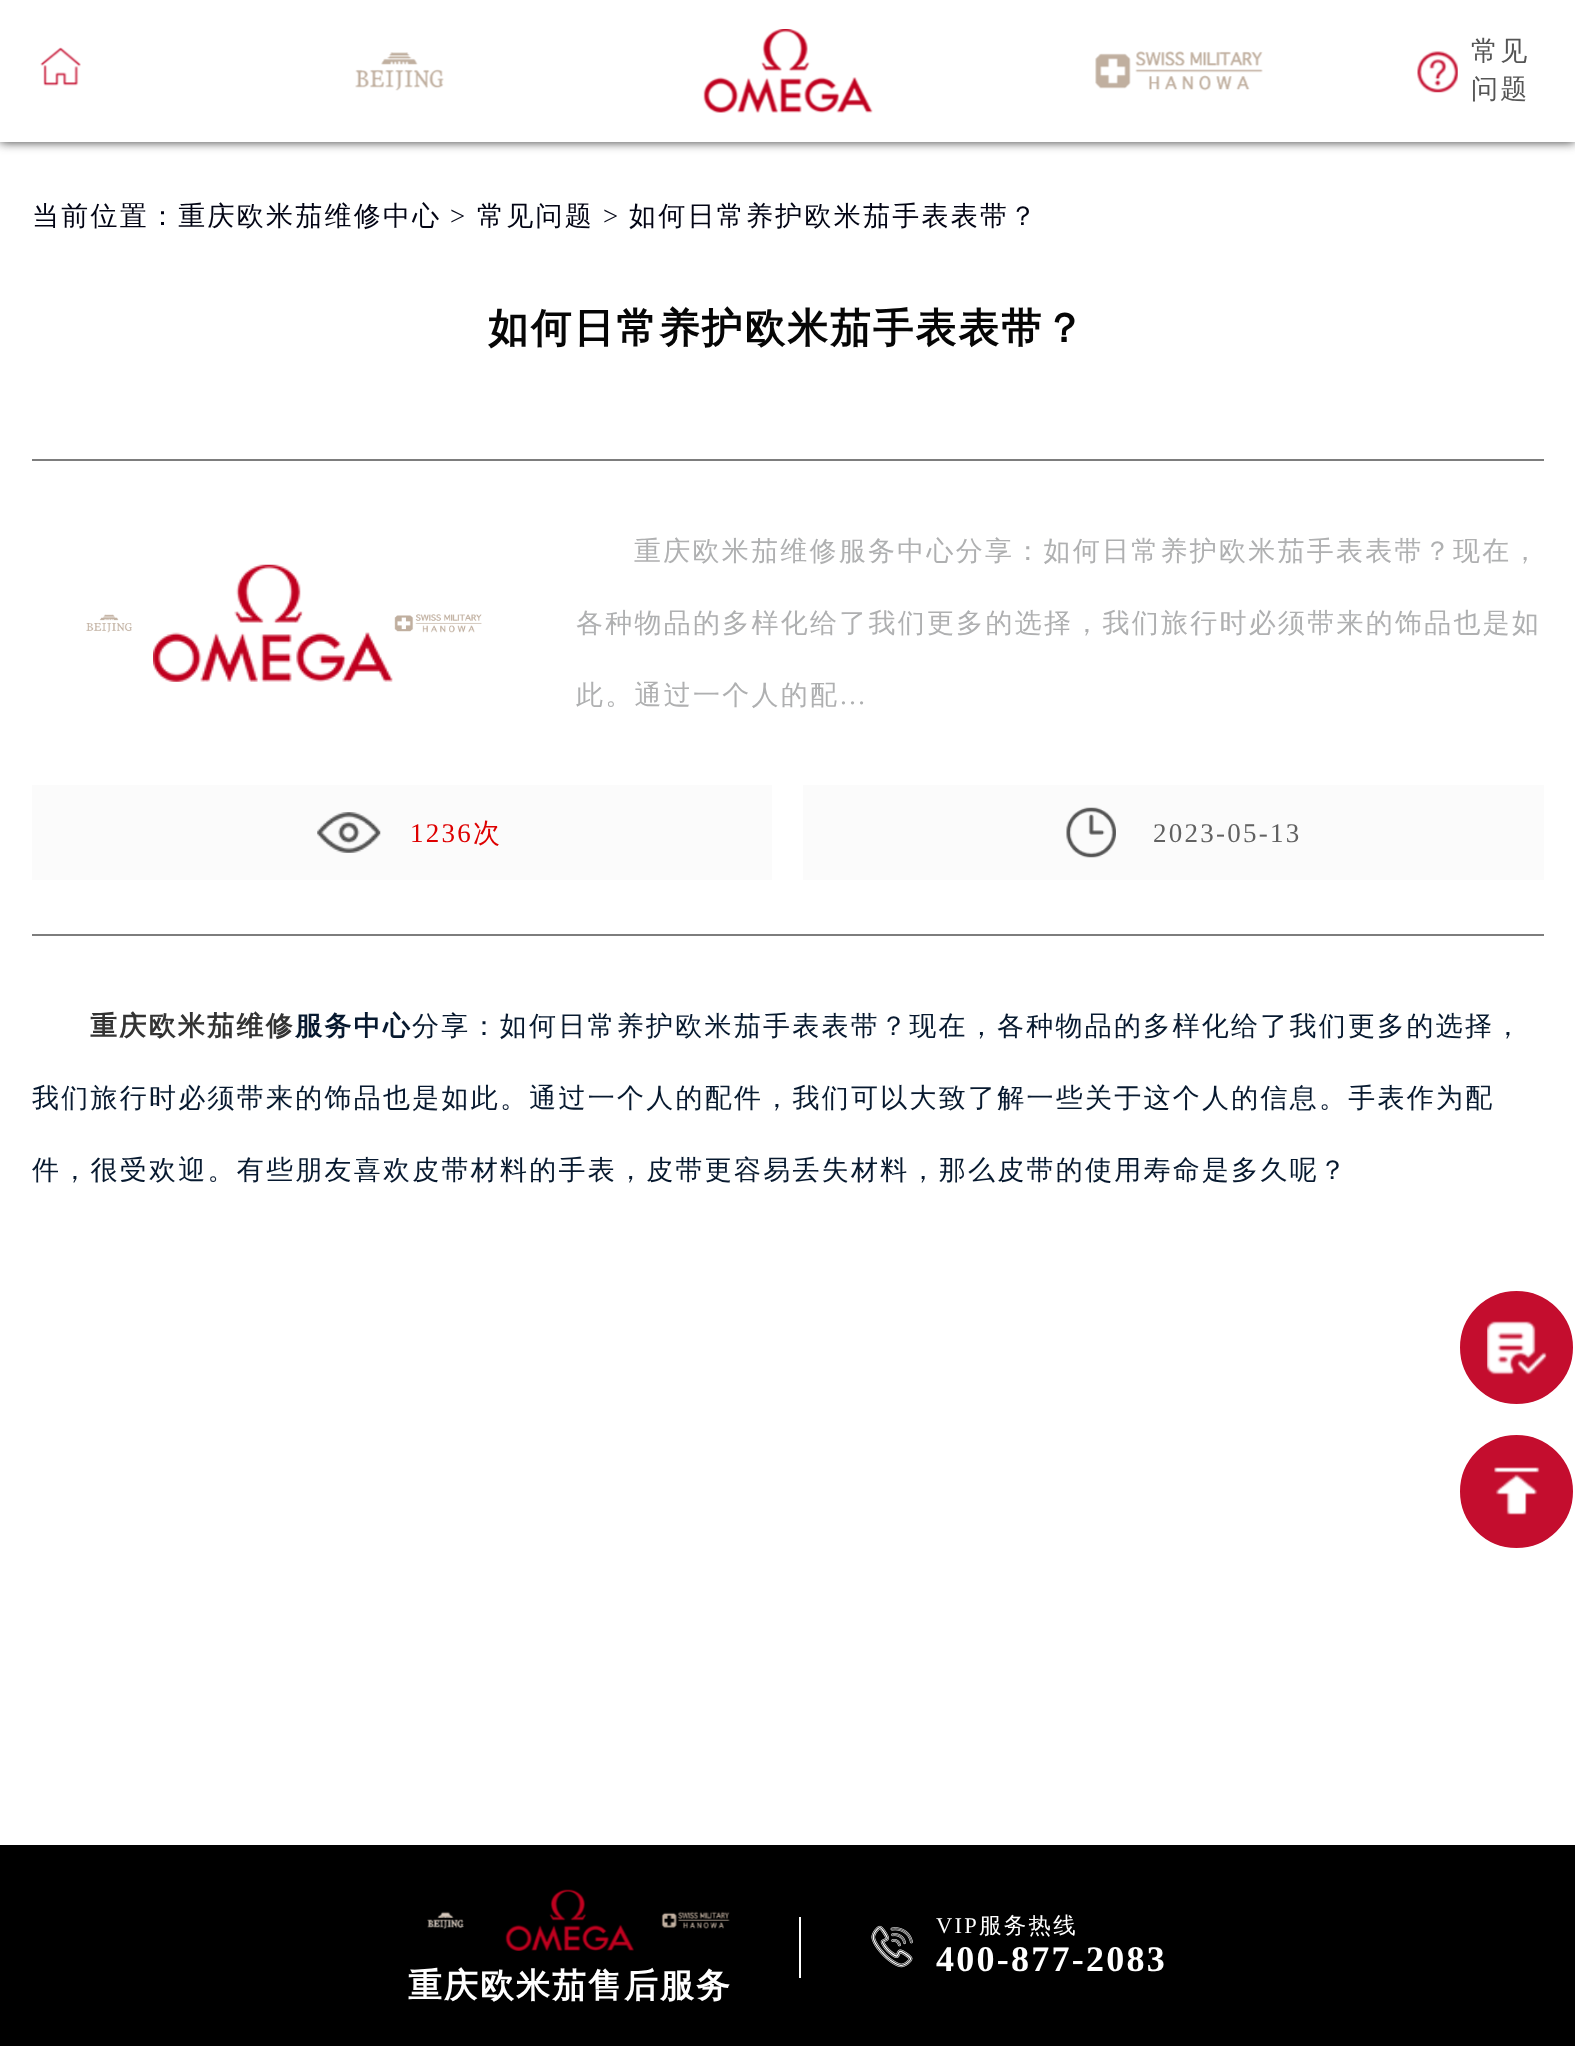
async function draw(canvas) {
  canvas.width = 1575;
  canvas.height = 2046;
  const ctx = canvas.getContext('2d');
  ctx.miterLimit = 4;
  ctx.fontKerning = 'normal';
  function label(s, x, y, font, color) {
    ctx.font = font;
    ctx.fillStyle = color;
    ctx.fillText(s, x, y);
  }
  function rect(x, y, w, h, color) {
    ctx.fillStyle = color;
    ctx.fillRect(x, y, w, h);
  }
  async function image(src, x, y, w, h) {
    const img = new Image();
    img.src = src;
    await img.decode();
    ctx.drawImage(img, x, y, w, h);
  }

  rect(0, 0, 1575, 2046, '#fff');
  ctx.fillStyle = '#333';
  ctx.filter = 'blur(5.5px)';
  ctx.beginPath();
  ctx.rect(0, 0, 1575, 142);
  ctx.fill();
  ctx.filter = 'none';
  rect(0, 0, 1575, 142, '#fff');
  await image('assets/img1.png', 40, 47, 41, 39);
  await image('assets/img2.png', 355, 52, 89, 39);
  await image('assets/img3.png', 703, 29, 170, 84);
  await image('assets/img4.png', 1095, 51, 168, 40);
  await image('assets/img5.png', 1417, 51, 41, 42);
  ctx.letterSpacing = '2.25px';
  label('常见', 1471, 60, '500 27px WenQuanYi Zen Hei', '#555');
  label('问题', 1471, 98, '500 27px WenQuanYi Zen Hei', '#555');
  label('当前位置：重庆欧米茄维修中心', 32, 225, '500 27px WenQuanYi Zen Hei', '#020414');
  label('>', 450, 225, '27px Liberation Serif', '#020414');
  label('常见问题', 477, 225, '500 27px WenQuanYi Zen Hei', '#020414');
  label('>', 603, 225, '27px Liberation Serif', '#020414');
  label('如何日常养护欧米茄手表表带？', 629, 225, '500 27px WenQuanYi Zen Hei', '#020414');
  label('如何日常养护欧米茄手表表带？', 488, 342, 'bold 40.5px WenQuanYi Zen Hei', '#060606');
  rect(32, 459, 1512, 2, '#7d7d7d');
  rect(32, 934, 1512, 2, '#7d7d7d');
  await image('assets/img6.png', 86, 614, 46, 19);
  await image('assets/img7.png', 153, 564, 240, 118);
  await image('assets/img8.png', 394, 614, 88, 19);
  label('重庆欧米茄维修服务中心分享：如何日常养护欧米茄手表表带？现在，', 634, 560, '500 27px WenQuanYi Zen Hei', '#afb0b1');
  label('各种物品的多样化给了我们更多的选择，我们旅行时必须带来的饰品也是如', 576, 632, '500 27px WenQuanYi Zen Hei', '#afb0b1');
  label('此。通过一个人的配', 576, 704, '500 27px WenQuanYi Zen Hei', '#afb0b1');
  label('…', 839, 704, '27px Liberation Serif', '#afb0b1');
  rect(32, 785, 740, 95, '#fbfbfb');
  await image('assets/img9.png', 317, 812, 64, 41);
  label('1236', 410, 842, '27px Liberation Serif', '#de0000');
  label('次', 473, 842, '500 27px WenQuanYi Zen Hei', '#de0000');
  rect(803, 785, 741, 95, '#fbfbfb');
  await image('assets/img10.png', 1066, 807, 50, 51);
  label('2023-05-13', 1153, 842, '27px Liberation Serif', '#616161');
  label('重庆欧米茄维修', 90, 1035, 'bold 27px WenQuanYi Zen Hei', '#333');
  label('服务中心', 295, 1035, 'bold 27px WenQuanYi Zen Hei', '#07192f');
  label('分享：如何日常养护欧米茄手表表带？现在，各种物品的多样化给了我们更多的选择，', 412, 1035, '500 27px WenQuanYi Zen Hei', '#07192f');
  label('我们旅行时必须带来的饰品也是如此。通过一个人的配件，我们可以大致了解一些关于这个人的信息。手表作为配', 32, 1107, '500 27px WenQuanYi Zen Hei', '#07192f');
  label('件，很受欢迎。有些朋友喜欢皮带材料的手表，皮带更容易丢失材料，那么皮带的使用寿命是多久呢？', 32, 1179, '500 27px WenQuanYi Zen Hei', '#07192f');
  ctx.fillStyle = '#c40d2e';
  ctx.beginPath();
  ctx.arc(1516.5, 1347.5, 57.5, 0, 2 * Math.PI);
  ctx.fill();
  ctx.strokeStyle = '#fff';
  ctx.lineWidth = 2;
  ctx.stroke();
  await image('assets/img11.png', 1487, 1321, 60, 54);
  ctx.beginPath();
  ctx.arc(1516.5, 1491.5, 57.5, 0, 2 * Math.PI);
  ctx.fill();
  ctx.stroke();
  await image('assets/img12.png', 1494, 1467, 46, 48);
  rect(0, 1845, 1575, 201, '#000');
  rect(799, 1917, 2, 61, '#fff');
  await image('assets/img13.png', 871, 1925, 42, 43);
  label('VIP', 936, 1933, '22.5px Liberation Serif', '#fff');
  label('服务热线', 979, 1933, '500 22.5px WenQuanYi Zen Hei', '#fff');
  label('400-877-2083', 936, 1971, 'bold 36px Liberation Serif', '#fff');
  await image('assets/img14.png', 427, 1911, 37, 18);
  await image('assets/img15.png', 505, 1889, 129, 62);
  await image('assets/img16.png', 661, 1911, 69, 18);
  label('重庆欧米茄售后服务', 408, 1997, 'bold 33.75px WenQuanYi Zen Hei', '#fff');
}

draw(document.querySelector('canvas'));
